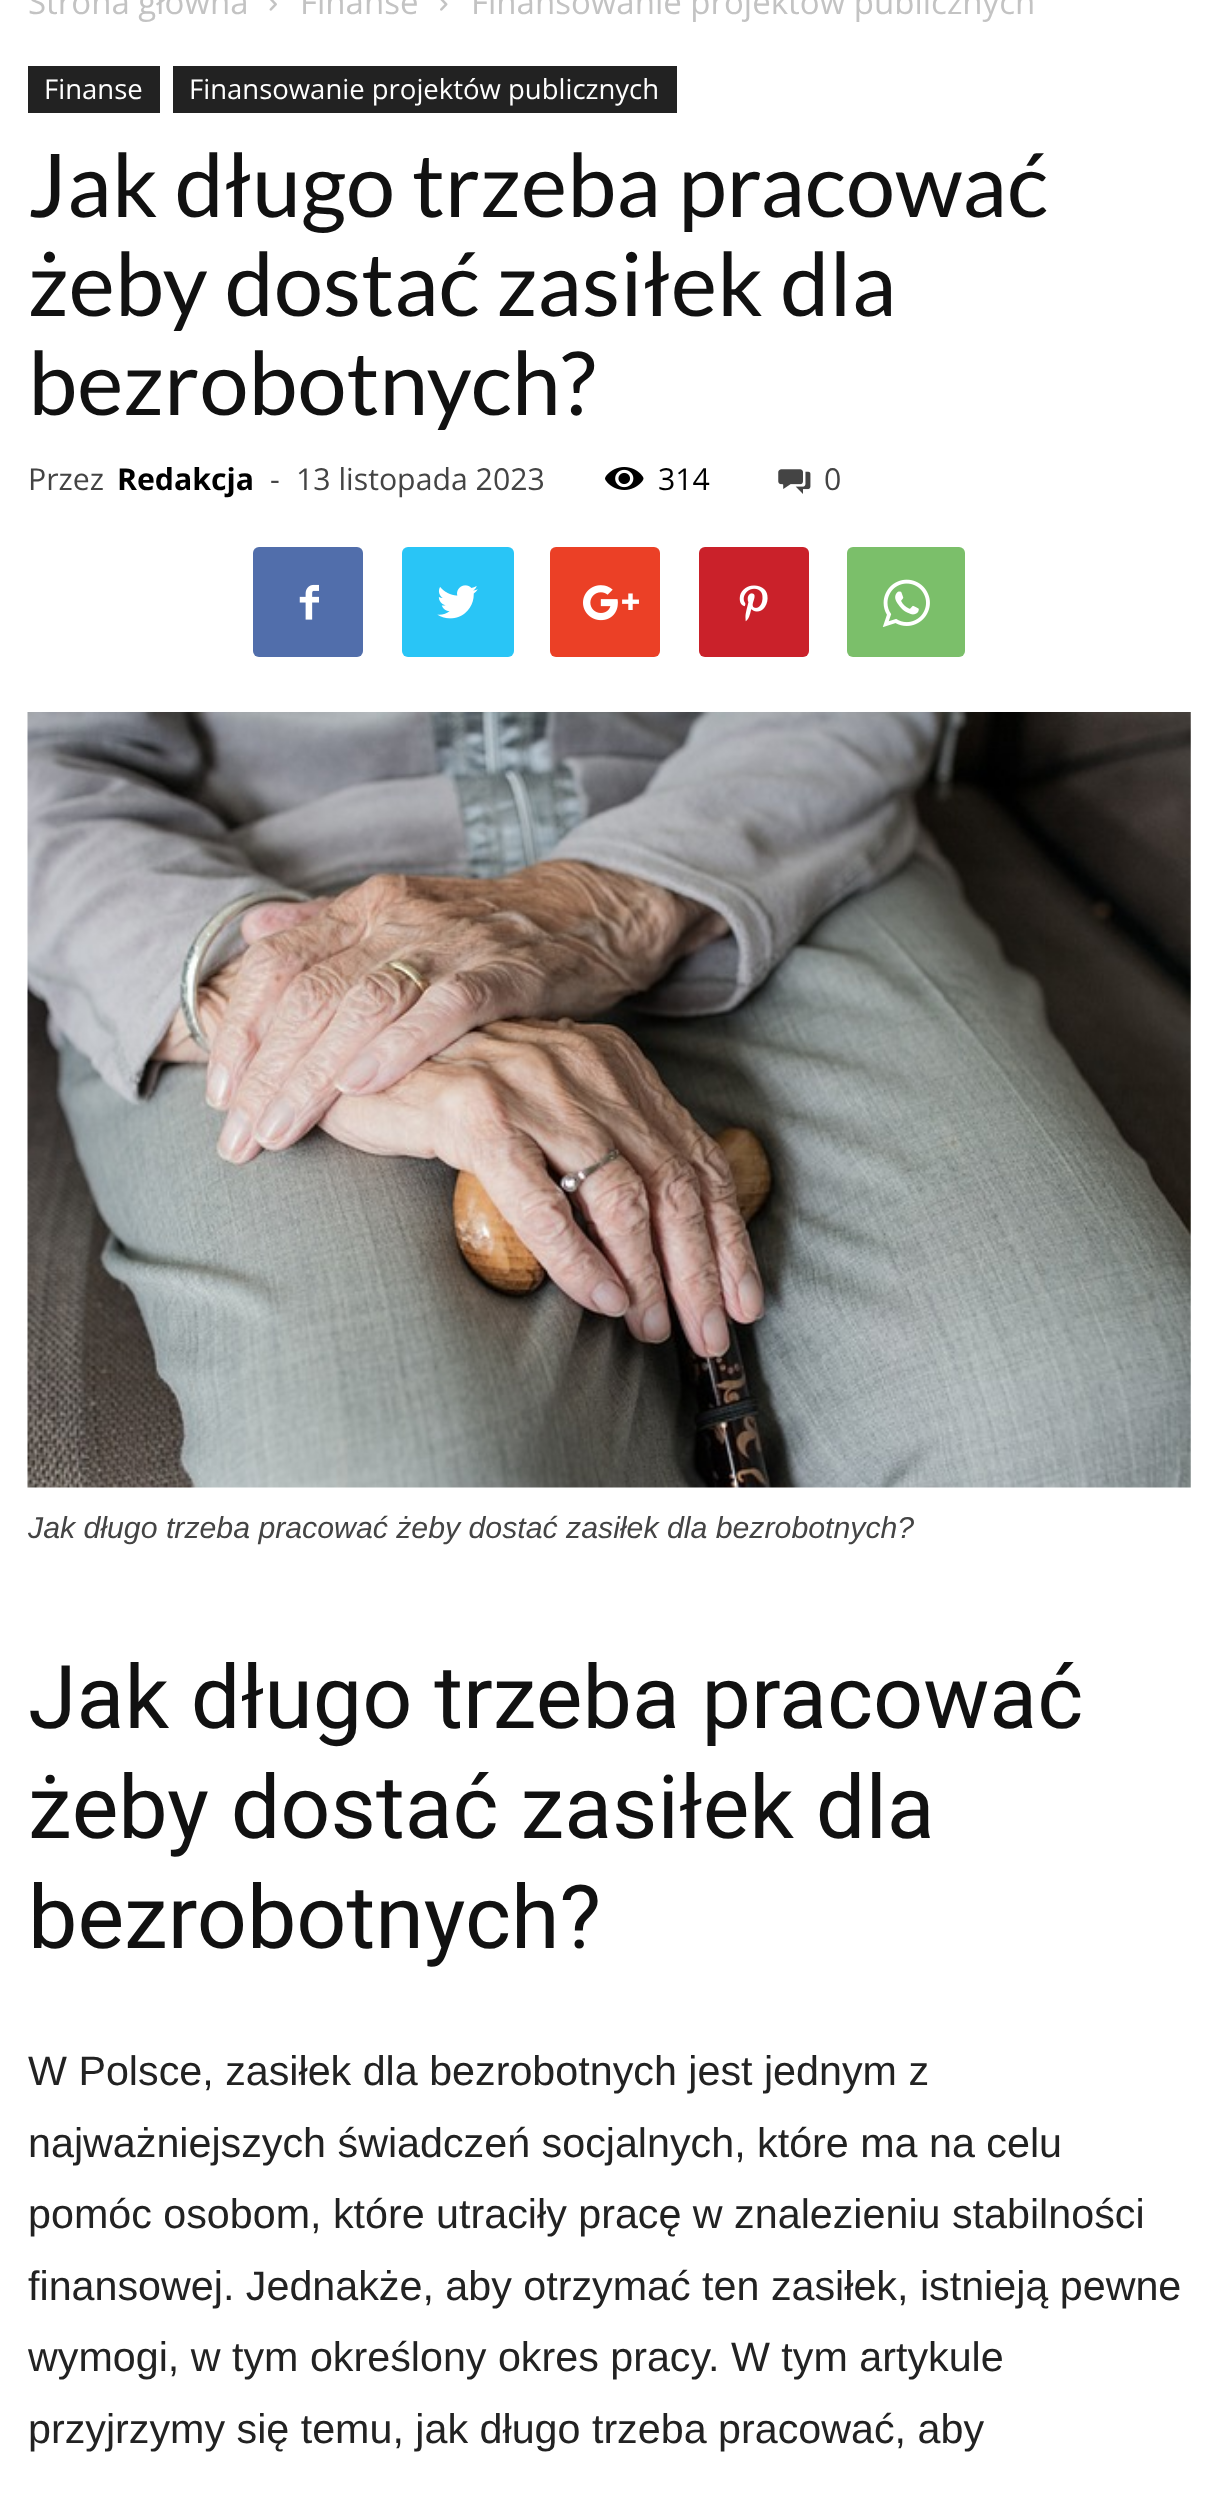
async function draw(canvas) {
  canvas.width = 1216;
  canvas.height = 2497;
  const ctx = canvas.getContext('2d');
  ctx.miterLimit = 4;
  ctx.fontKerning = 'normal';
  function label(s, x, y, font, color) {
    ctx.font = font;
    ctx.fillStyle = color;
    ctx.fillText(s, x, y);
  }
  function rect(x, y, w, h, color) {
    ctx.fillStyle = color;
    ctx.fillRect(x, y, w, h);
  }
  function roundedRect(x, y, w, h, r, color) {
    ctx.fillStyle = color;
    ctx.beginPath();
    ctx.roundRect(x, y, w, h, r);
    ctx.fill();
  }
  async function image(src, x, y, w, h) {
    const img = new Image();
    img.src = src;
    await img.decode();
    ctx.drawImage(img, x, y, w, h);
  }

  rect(0, 0, 1216, 2497, '#fff');
  label('Strona główna', 28, 14, '33px Open Sans', '#c3c3c3');
  await image('assets/img1.png', 269, 0, 8, 11);
  label('Finanse', 300, 14, '33px Open Sans', '#c3c3c3');
  await image('assets/img2.png', 440, 0, 8, 11);
  label('Finansowanie projektów publicznych', 471, 14, '33px Open Sans', '#c3c3c3');
  rect(28, 66, 132, 47, '#222');
  label('Finanse', 44, 99, '27.5px Open Sans', '#fff');
  rect(173, 66, 504, 47, '#222');
  label('Finansowanie projektów publicznych', 189, 99, '27.5px Open Sans', '#fff');
  label('Jak długo trzeba pracować', 28, 217, '88px Lato', '#111');
  label('żeby dostać zasiłek dla', 28, 316, '88px Lato', '#111');
  label('bezrobotnych?', 28, 415, '88px Lato', '#111');
  label('Przez', 28, 490, '30.25px Open Sans', '#444');
  label('Redakcja', 117, 490, 'bold 30.25px Open Sans', '#000');
  label('-', 270, 490, '30.25px Open Sans', '#444');
  label('13 listopada 2023', 296, 490, '30.25px Open Sans', '#444');
  await image('assets/img3.png', 605, 467, 39, 23);
  label('314', 658, 490, '30.25px Open Sans', '#000');
  await image('assets/img4.png', 778, 469, 33, 25);
  label('0', 824, 490, '30.25px Open Sans', '#444');
  roundedRect(253, 547, 110, 110, 6, '#516eab');
  await image('assets/img5.png', 299, 584, 20, 36);
  roundedRect(402, 547, 112, 110, 6, '#29c5f6');
  await image('assets/img6.png', 437, 585, 41, 34);
  roundedRect(550, 547, 110, 110, 6, '#eb4026');
  await image('assets/img7.png', 583, 585, 56, 36);
  roundedRect(699, 547, 110, 110, 6, '#ca212a');
  await image('assets/img8.png', 739, 585, 29, 37);
  roundedRect(847, 547, 118, 110, 6, '#7bbf6a');
  await image('assets/img9.png', 882, 579, 48, 48);
  await image('assets/img10.png', 27, 712, 1164, 776);
  label('Jak długo trzeba pracować żeby dostać zasiłek dla bezrobotnych?', 28, 1538, 'italic 30.25px Liberation Sans', '#444');
  label('Jak długo trzeba pracować', 28, 1728, '88px Roboto', '#111');
  label('żeby dostać zasiłek dla', 28, 1838, '88px Roboto', '#111');
  label('bezrobotnych?', 28, 1948, '88px Roboto', '#111');
  label('W Polsce, zasiłek dla bezrobotnych jest jednym z', 28, 2085, '41.25px Liberation Sans', '#222');
  label('najważniejszych świadczeń socjalnych, które ma na celu', 28, 2157, '41.25px Liberation Sans', '#222');
  label('pomóc osobom, które utraciły pracę w znalezieniu stabilności', 28, 2228, '41.25px Liberation Sans', '#222');
  label('finansowej. Jednakże, aby otrzymać ten zasiłek, istnieją pewne', 28, 2300, '41.25px Liberation Sans', '#222');
  label('wymogi, w tym określony okres pracy. W tym artykule', 28, 2371, '41.25px Liberation Sans', '#222');
  label('przyjrzymy się temu, jak długo trzeba pracować, aby', 28, 2443, '41.25px Liberation Sans', '#222');
}

draw(document.querySelector('canvas'));
